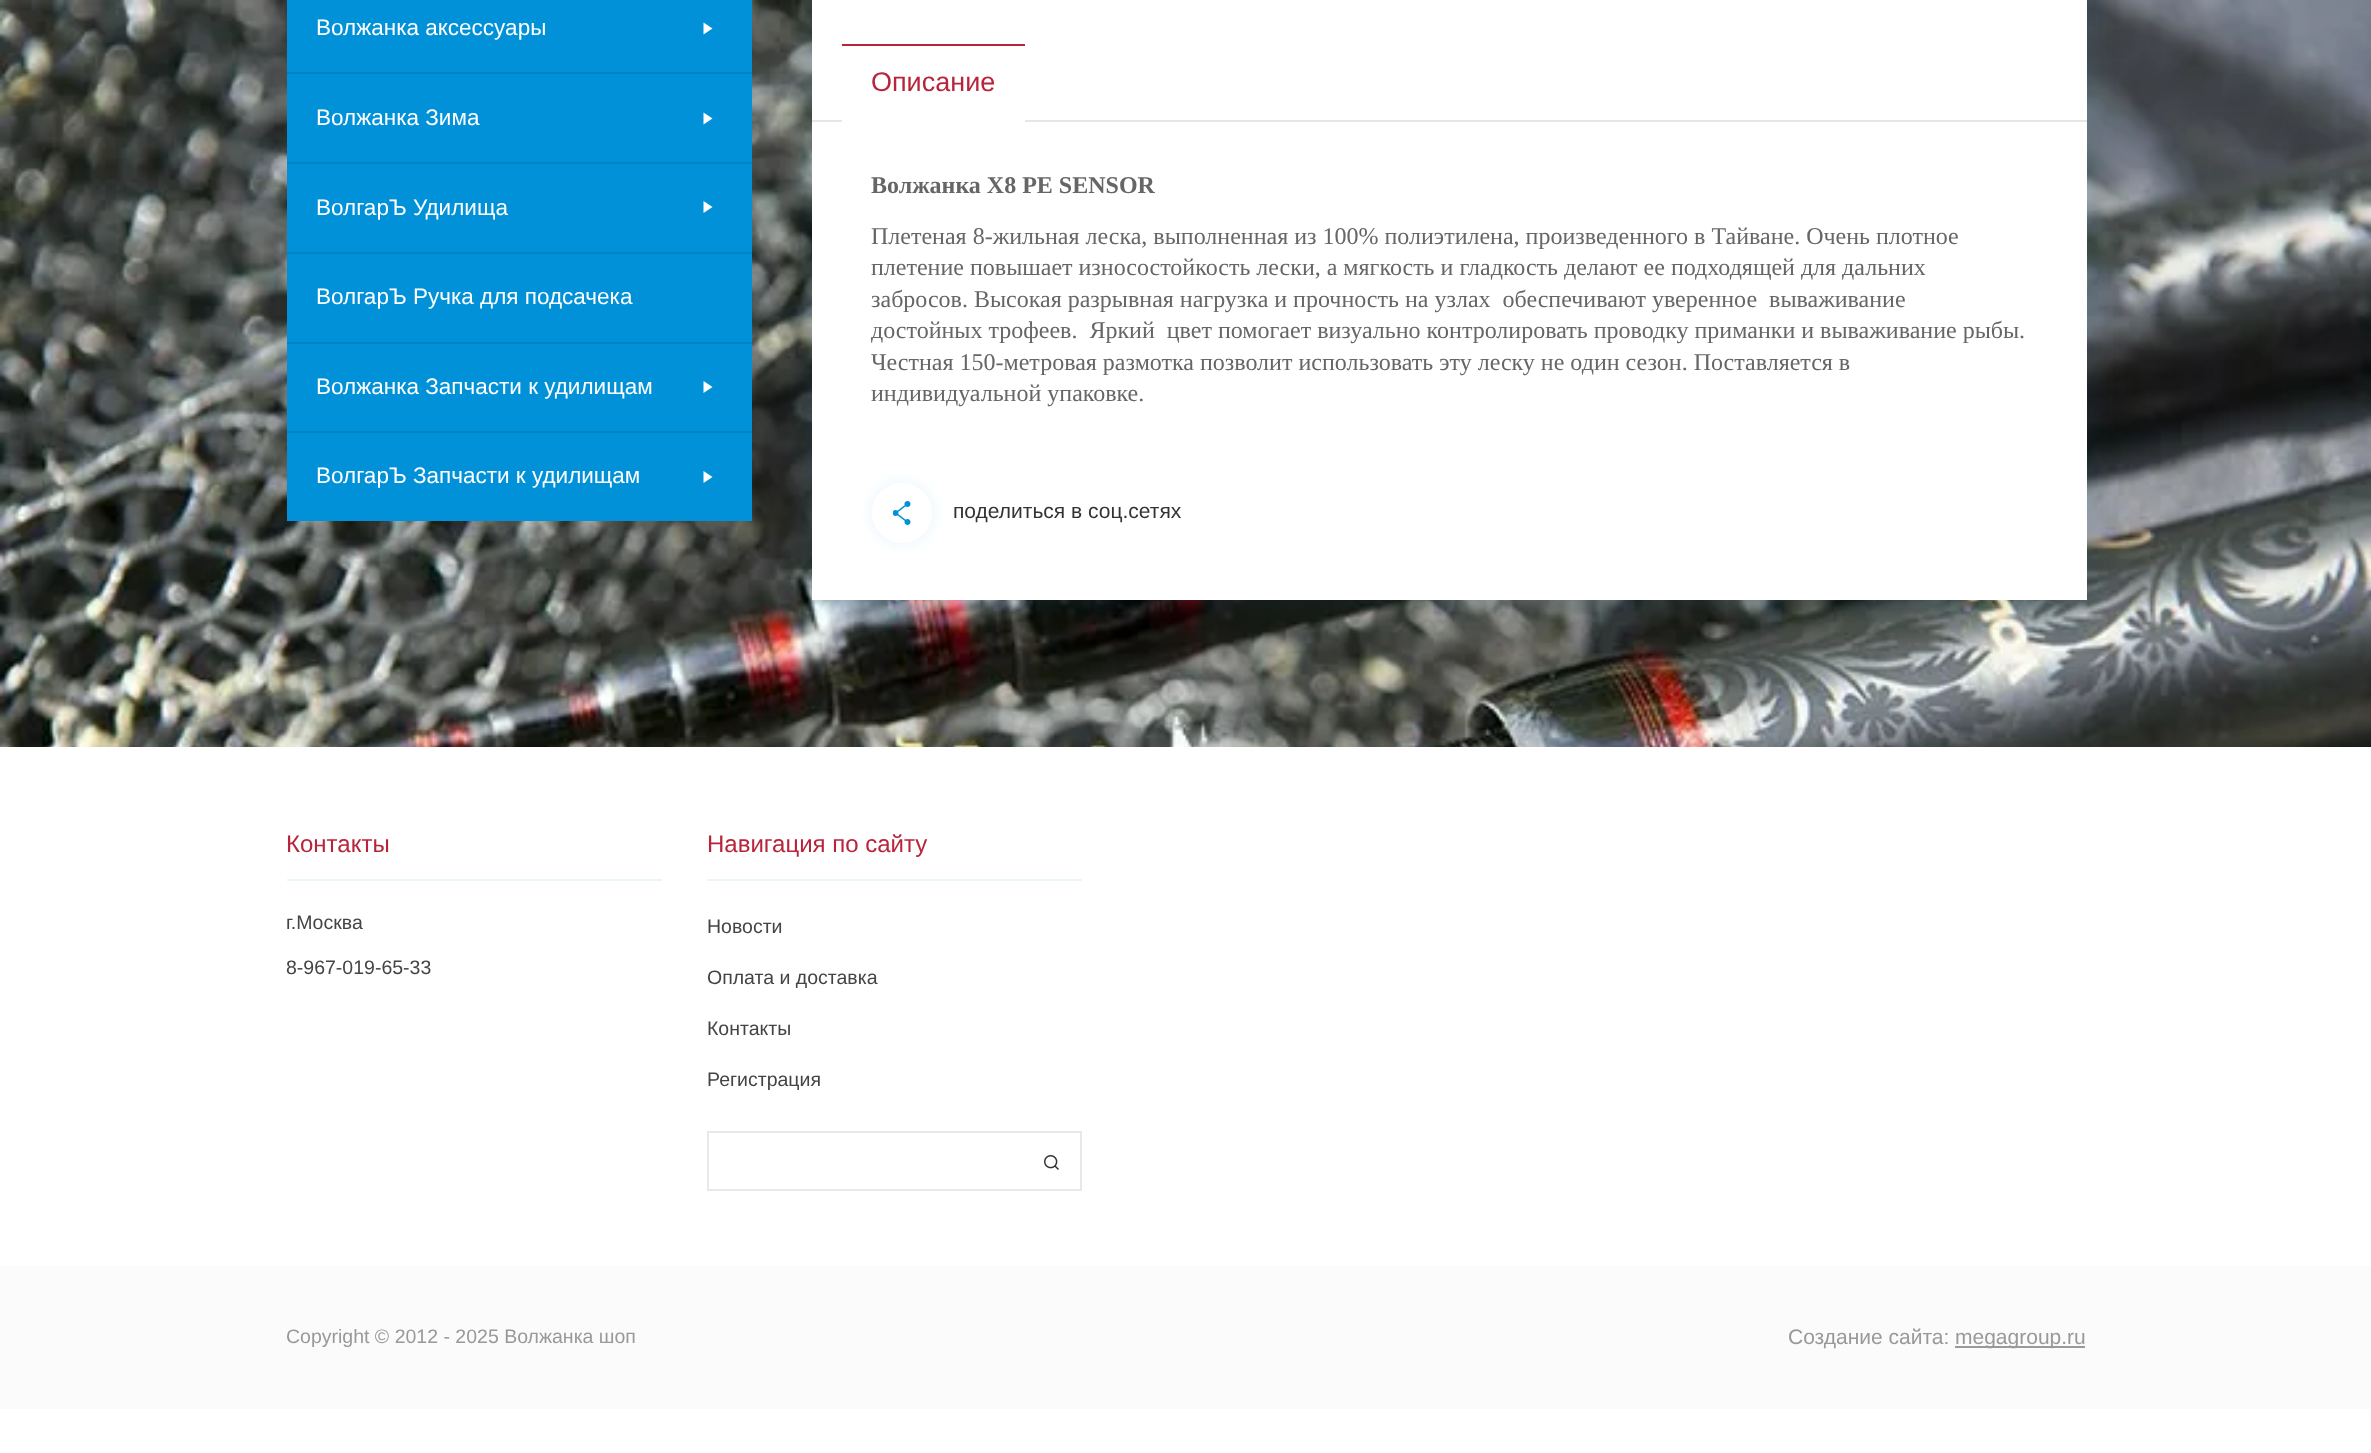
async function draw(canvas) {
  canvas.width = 2371;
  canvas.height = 1453;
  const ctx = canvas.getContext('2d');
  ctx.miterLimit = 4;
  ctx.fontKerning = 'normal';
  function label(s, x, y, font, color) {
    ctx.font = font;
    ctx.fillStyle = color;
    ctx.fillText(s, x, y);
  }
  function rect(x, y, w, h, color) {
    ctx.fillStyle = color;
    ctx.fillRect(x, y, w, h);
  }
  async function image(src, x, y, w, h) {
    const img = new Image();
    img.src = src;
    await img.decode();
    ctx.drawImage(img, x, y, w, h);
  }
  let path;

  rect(0, 0, 2371, 1453, '#fff');
  await image('assets/img1.png', 0, 0, 2371, 747);
  rect(287, 0, 465, 521, '#0091d9');
  label('Волжанка аксессуары', 316, 35, '22.5px Liberation Sans', '#fff');
  path = new Path2D('M703.5 34.5V22.5L712.5 28.5Z');
  ctx.fill(path);
  rect(287, 72, 465, 2, '#0083c3');
  label('Волжанка Зима', 316, 125, '22.5px Liberation Sans', '#fff');
  path = new Path2D('M703.5 124.5V112.5L712.5 118.5Z');
  ctx.fill(path);
  rect(287, 162, 465, 2, '#0083c3');
  label('ВолгарЪ Удилища', 316, 215, '22.5px Liberation Sans', '#fff');
  path = new Path2D('M703.5 213V201L712.5 207Z');
  ctx.fill(path);
  rect(287, 252, 465, 2, '#0083c3');
  label('ВолгарЪ Ручка для подсачека', 316, 304, '22.5px Liberation Sans', '#fff');
  rect(287, 342, 465, 2, '#0083c3');
  label('Волжанка Запчасти к удилищам', 316, 394, '22.5px Liberation Sans', '#fff');
  path = new Path2D('M703.5 393V381L712.5 387Z');
  ctx.fill(path);
  rect(287, 431, 465, 2, '#0083c3');
  label('ВолгарЪ Запчасти к удилищам', 316, 483, '22.5px Liberation Sans', '#fff');
  path = new Path2D('M703.5 483V471L712.5 477Z');
  ctx.fill(path);
  ctx.fillStyle = '#0091d91a';
  ctx.filter = 'blur(15px)';
  ctx.beginPath();
  ctx.rect(812, -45, 1275, 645);
  ctx.fill();
  ctx.filter = 'none';
  rect(812, 0, 1275, 600, '#fff');
  rect(812, 120, 1275, 2, '#e6e6e6');
  rect(842, 120, 183, 2, '#fff');
  rect(842, 44, 183, 2, '#b8243b');
  label('Описание', 871, 91, '27px Liberation Sans', '#b8243b');
  label('Волжанка X8 PE SENSOR', 871, 193, 'bold 24px Liberation Serif', '#666');
  label('Плетеная 8-жильная леска, выполненная из 100% полиэтилена, произведенного в Тайване. Очень плотное', 871, 244, '24px Liberation Serif', '#666');
  label('плетение повышает износостойкость лески, а мягкость и гладкость делают ее подходящей для дальних', 871, 275, '24px Liberation Serif', '#666');
  label('забросов. Высокая разрывная нагрузка и прочность на узлах  обеспечивают уверенное  вываживание', 871, 307, '24px Liberation Serif', '#666');
  label('достойных трофеев.  Яркий  цвет помогает визуально контролировать проводку приманки и вываживание рыбы.', 871, 338, '24px Liberation Serif', '#666');
  label('Честная 150-метровая размотка позволит использовать эту леску не один сезон. Поставляется в', 871, 370, '24px Liberation Serif', '#666');
  label('индивидуальной упаковке.', 871, 401, '24px Liberation Serif', '#666');
  ctx.save();
  path = new Path2D('M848 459H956V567H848ZM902 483C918.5 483 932 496.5 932 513C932 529.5 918.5 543 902 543C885.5 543 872 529.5 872 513C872 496.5 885.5 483 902 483Z');
  ctx.clip(path, 'evenodd');
  ctx.fillStyle = '#0091d91a';
  ctx.filter = 'blur(7.5px)';
  ctx.beginPath();
  ctx.roundRect(872, 483, 60, 60, 30);
  ctx.fill();
  ctx.filter = 'none';
  ctx.restore();
  await image('assets/img2.png', 893, 501, 18, 24);
  label('поделиться в соц.сетях', 953, 518, '21px Liberation Sans', '#333');
  rect(287, 879, 375, 2, '#ebf6fc');
  label('Контакты', 286, 852, '24px Liberation Sans', '#b8243b');
  label('г.Москва', 286, 929, '19.5px Liberation Sans', '#444');
  label('8-967-019-65-33', 286, 974, '19.5px Liberation Sans', '#444');
  rect(707, 879, 375, 2, '#ebf6fc');
  label('Навигация по сайту', 707, 852, '24px Liberation Sans', '#b8243b');
  label('Новости', 707, 933, '19.5px Liberation Sans', '#444');
  label('Оплата и доставка', 707, 984, '19.5px Liberation Sans', '#444');
  label('Контакты', 707, 1035, '19.5px Liberation Sans', '#444');
  label('Регистрация', 707, 1086, '19.5px Liberation Sans', '#444');
  ctx.strokeStyle = '#e8e8e8';
  ctx.lineWidth = 2;
  ctx.strokeRect(708, 1132, 373, 58);
  await image('assets/img3.png', 1044, 1155, 15, 15);
  rect(0, 1266, 2371, 143, '#fbfbfb');
  label('Copyright © 2012 - 2025 Волжанка шоп', 286, 1343, '19.5px Liberation Sans', '#999');
  label('Создание сайта:', 1788, 1344, '21px Liberation Sans', '#999');
  rect(1955, 1346, 130, 2, '#999');
  label('megagroup.ru', 1955, 1344, '21px Liberation Sans', '#999');
}

draw(document.querySelector('canvas'));
